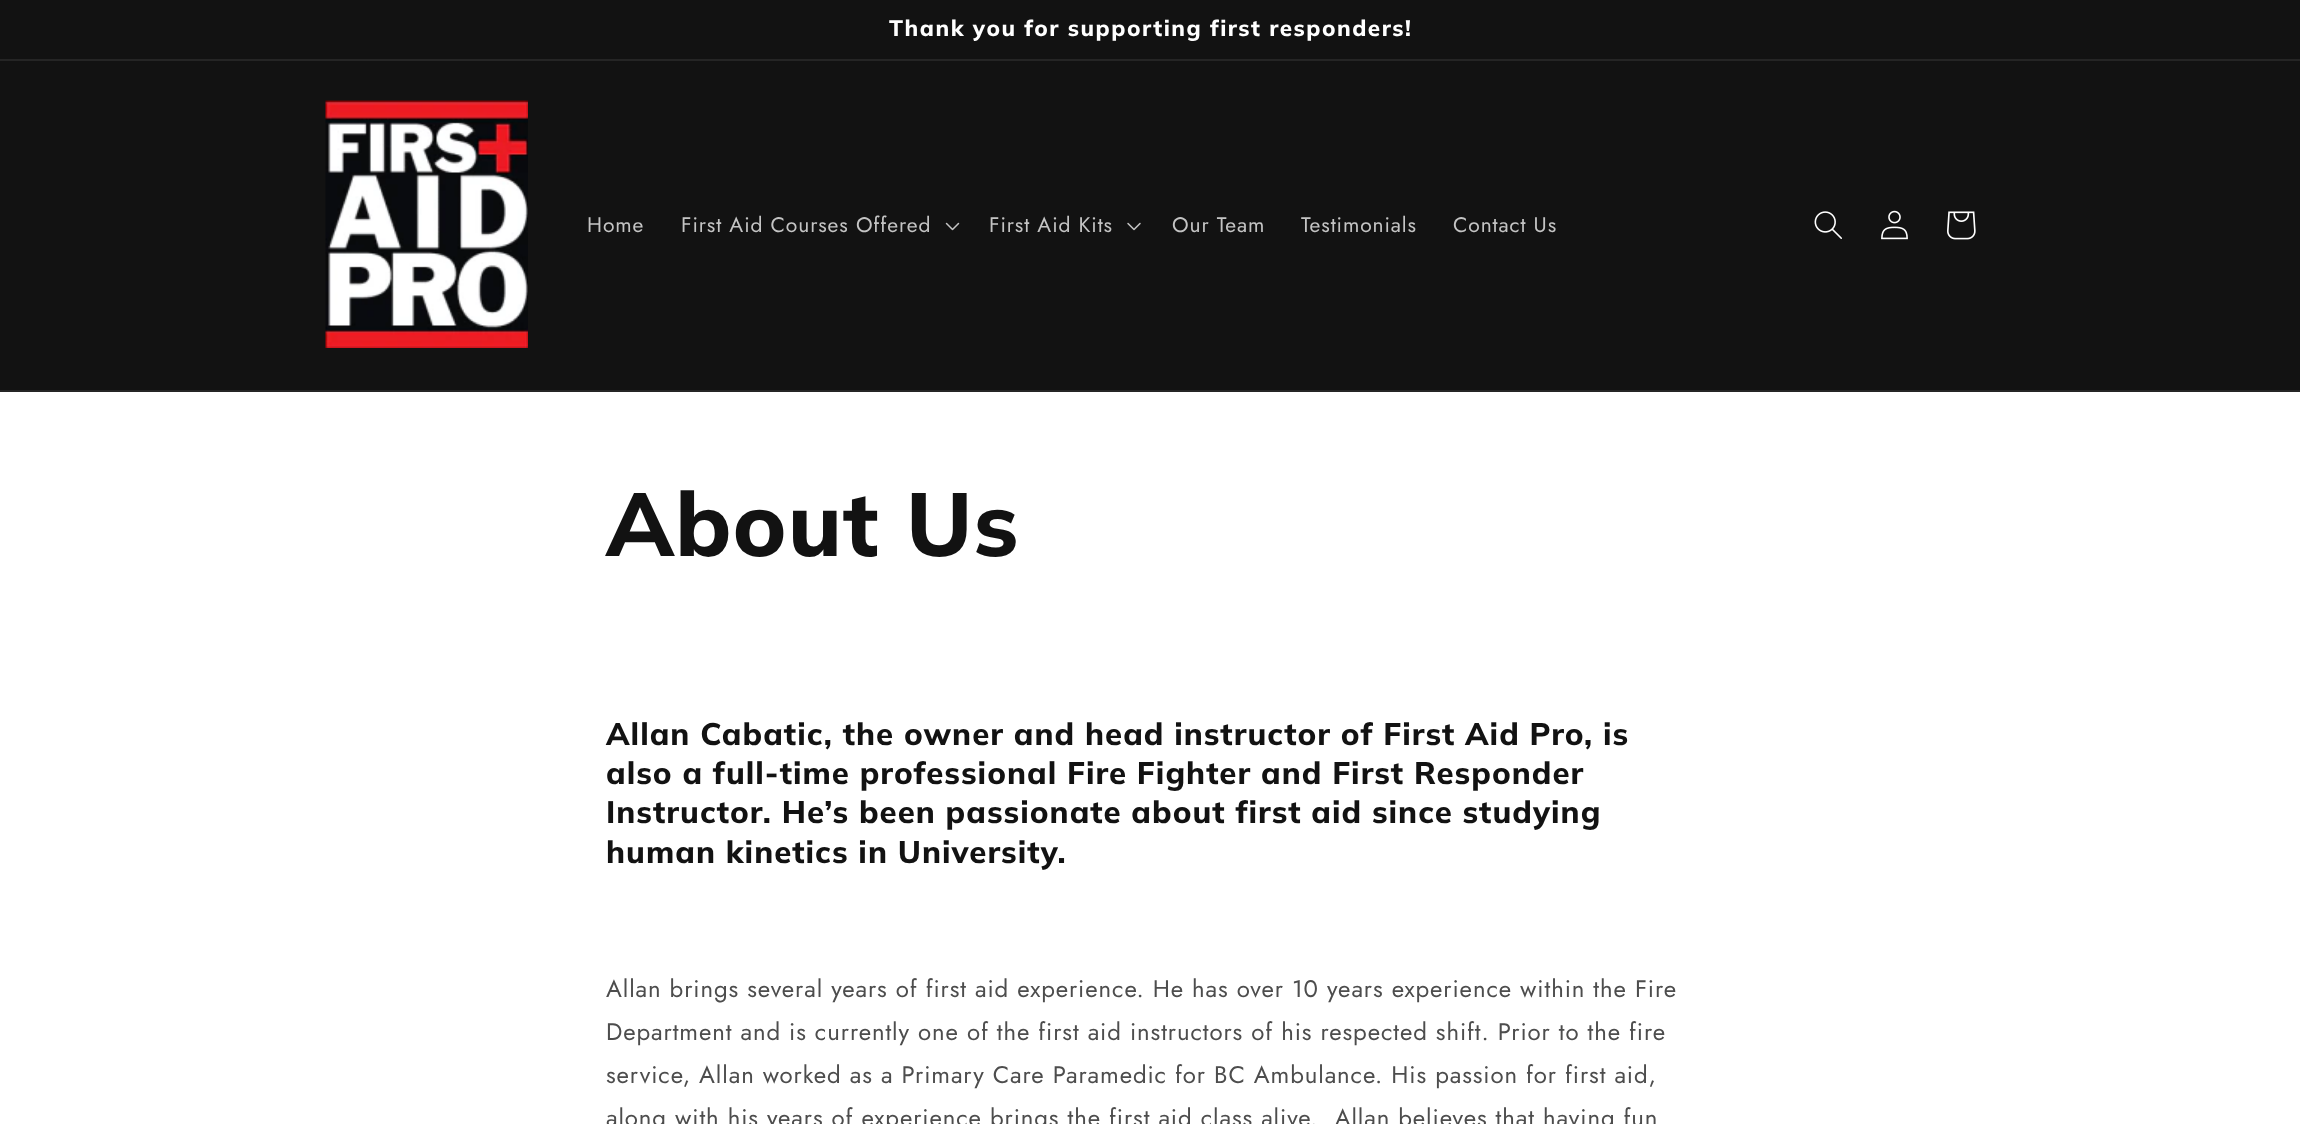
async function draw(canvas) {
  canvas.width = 2300;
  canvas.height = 1124;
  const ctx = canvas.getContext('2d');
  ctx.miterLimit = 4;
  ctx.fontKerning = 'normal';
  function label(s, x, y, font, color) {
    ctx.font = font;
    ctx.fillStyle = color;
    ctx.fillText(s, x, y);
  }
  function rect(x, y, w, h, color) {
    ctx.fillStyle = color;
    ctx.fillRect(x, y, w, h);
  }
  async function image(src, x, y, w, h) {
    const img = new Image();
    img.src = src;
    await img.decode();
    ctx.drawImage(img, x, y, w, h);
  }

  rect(0, 0, 2300, 1124, '#fff');
  rect(0, 0, 2300, 59, '#121212');
  rect(0, 59, 2300, 2, '#252525');
  ctx.letterSpacing = '1.5px';
  label('Thank you for supporting first responders!', 889, 36, '800 22.4px Muli', '#fff');
  rect(0, 61, 2300, 329, '#121212');
  rect(0, 390, 2300, 2, '#252525');
  await image('assets/img1.png', 325, 100, 203, 248);
  ctx.letterSpacing = '0.9px';
  label('Home', 587, 232, '21px Jost', '#c4c4c4');
  label('First Aid Courses Offered', 681, 232, '21px Jost', '#c4c4c4');
  await image('assets/img2.png', 945, 222, 15, 9);
  label('First Aid Kits', 989, 232, '21px Jost', '#c4c4c4');
  await image('assets/img3.png', 1127, 222, 14, 9);
  label('Our Team', 1172, 232, '21px Jost', '#c4c4c4');
  label('Testimonials', 1301, 232, '21px Jost', '#c4c4c4');
  label('Contact Us', 1453, 232, '21px Jost', '#c4c4c4');
  await image('assets/img4.png', 1814, 211, 28, 28);
  await image('assets/img5.png', 1881, 210, 27, 30);
  await image('assets/img6.png', 1947, 211, 29, 29);
  ctx.letterSpacing = '1.03px';
  label('About Us', 606, 556, '800 89.5px Muli', '#121212');
  label('Allan Cabatic, the owner and head instructor of First Aid Pro, is', 606, 745, '800 31.05px Muli', '#121212');
  label('also a full-time professional Fire Fighter and First Responder', 606, 784, '800 31.05px Muli', '#121212');
  label('Instructor. He’s been passionate about first aid since studying', 606, 823, '800 31.05px Muli', '#121212');
  label('human kinetics in University.', 606, 863, '800 31.05px Muli', '#121212');
  ctx.letterSpacing = '0.9px';
  label('Allan brings several years of first aid experience. He has over 10 years experience within the Fire', 606, 997, '24px Jost', '#4d4d4d');
  label('Department and is currently one of the first aid instructors of his respected shift. Prior to the fire', 606, 1040, '24px Jost', '#4d4d4d');
  label('service, Allan worked as a Primary Care Paramedic for BC Ambulance. His passion for first aid,', 606, 1083, '24px Jost', '#4d4d4d');
  label('along with his years of experience brings the first aid class alive.  Allan believes that having fun', 606, 1126, '24px Jost', '#4d4d4d');
}

draw(document.querySelector('canvas'));
